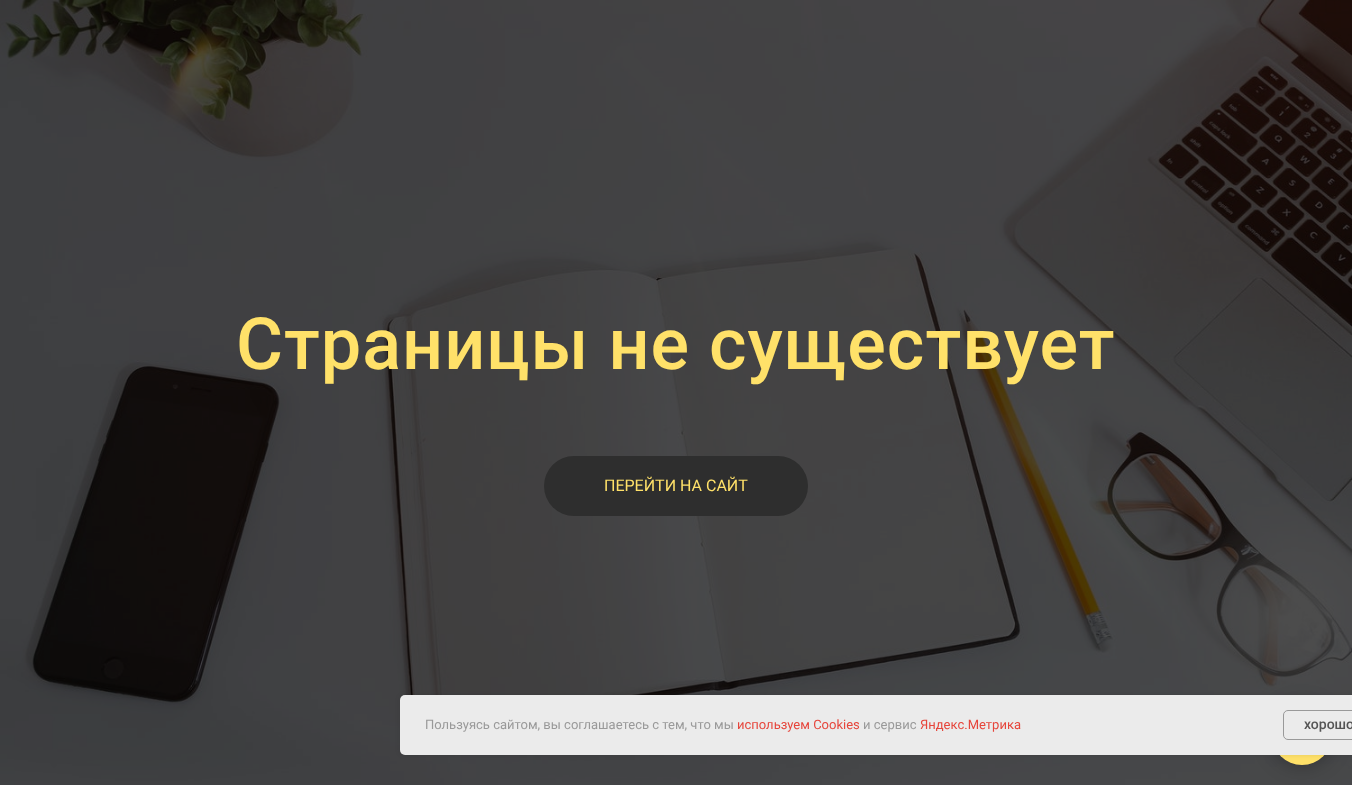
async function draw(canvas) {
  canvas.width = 1352;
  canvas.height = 785;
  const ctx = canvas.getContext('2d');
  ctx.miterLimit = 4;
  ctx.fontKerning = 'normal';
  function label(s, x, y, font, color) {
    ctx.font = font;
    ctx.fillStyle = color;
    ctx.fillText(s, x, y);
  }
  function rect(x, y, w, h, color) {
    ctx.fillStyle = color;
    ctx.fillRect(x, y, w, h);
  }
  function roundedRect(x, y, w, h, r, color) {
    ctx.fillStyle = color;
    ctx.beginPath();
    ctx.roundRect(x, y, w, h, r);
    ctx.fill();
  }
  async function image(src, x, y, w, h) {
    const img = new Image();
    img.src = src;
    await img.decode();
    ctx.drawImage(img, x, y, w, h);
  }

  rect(0, 0, 1352, 785, '#fff');
  await image('assets/img1.png', 0, 0, 1352, 785);
  ctx.letterSpacing = '1px';
  label('Страницы не существует', 236, 369, '500 72px Roboto', '#ffe169');
  roundedRect(544, 456, 264, 60, 30, '#2e2e2e');
  ctx.letterSpacing = '0px';
  label('ПЕРЕЙТИ НА САЙТ', 604, 491, '16px Roboto', '#ffe169');
  ctx.fillStyle = '#0000004d';
  ctx.filter = 'blur(10px)';
  ctx.beginPath();
  ctx.roundRect(1272, 705, 60, 60, 30);
  ctx.fill();
  ctx.filter = 'none';
  ctx.fillStyle = '#ffe169';
  ctx.beginPath();
  ctx.arc(1302, 735, 30, 0, 2 * Math.PI);
  ctx.fill();
  ctx.fillStyle = '#0000001a';
  ctx.filter = 'blur(2.5px)';
  ctx.beginPath();
  ctx.roundRect(400, 695, 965, 60, 5);
  ctx.fill();
  ctx.filter = 'none';
  roundedRect(400, 695, 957, 60, 5, '#ebebeb');
  label('Пользуясь сайтом, вы соглашаетесь с тем, что мы', 425, 729, '13px Roboto', '#999');
  label('используем Cookies', 737, 729, '13px Roboto', '#e6453b');
  label('и сервис', 863, 729, '13px Roboto', '#999');
  label('Яндекс.Метрика', 920, 729, '13px Roboto', '#e6453b');
  ctx.beginPath();
  ctx.roundRect(1283.5, 710.5, 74, 29, 4.5);
  ctx.strokeStyle = '#999';
  ctx.stroke();
  label('хорошо', 1304, 729, '500 14px Roboto', '#555');
}

draw(document.querySelector('canvas'));
